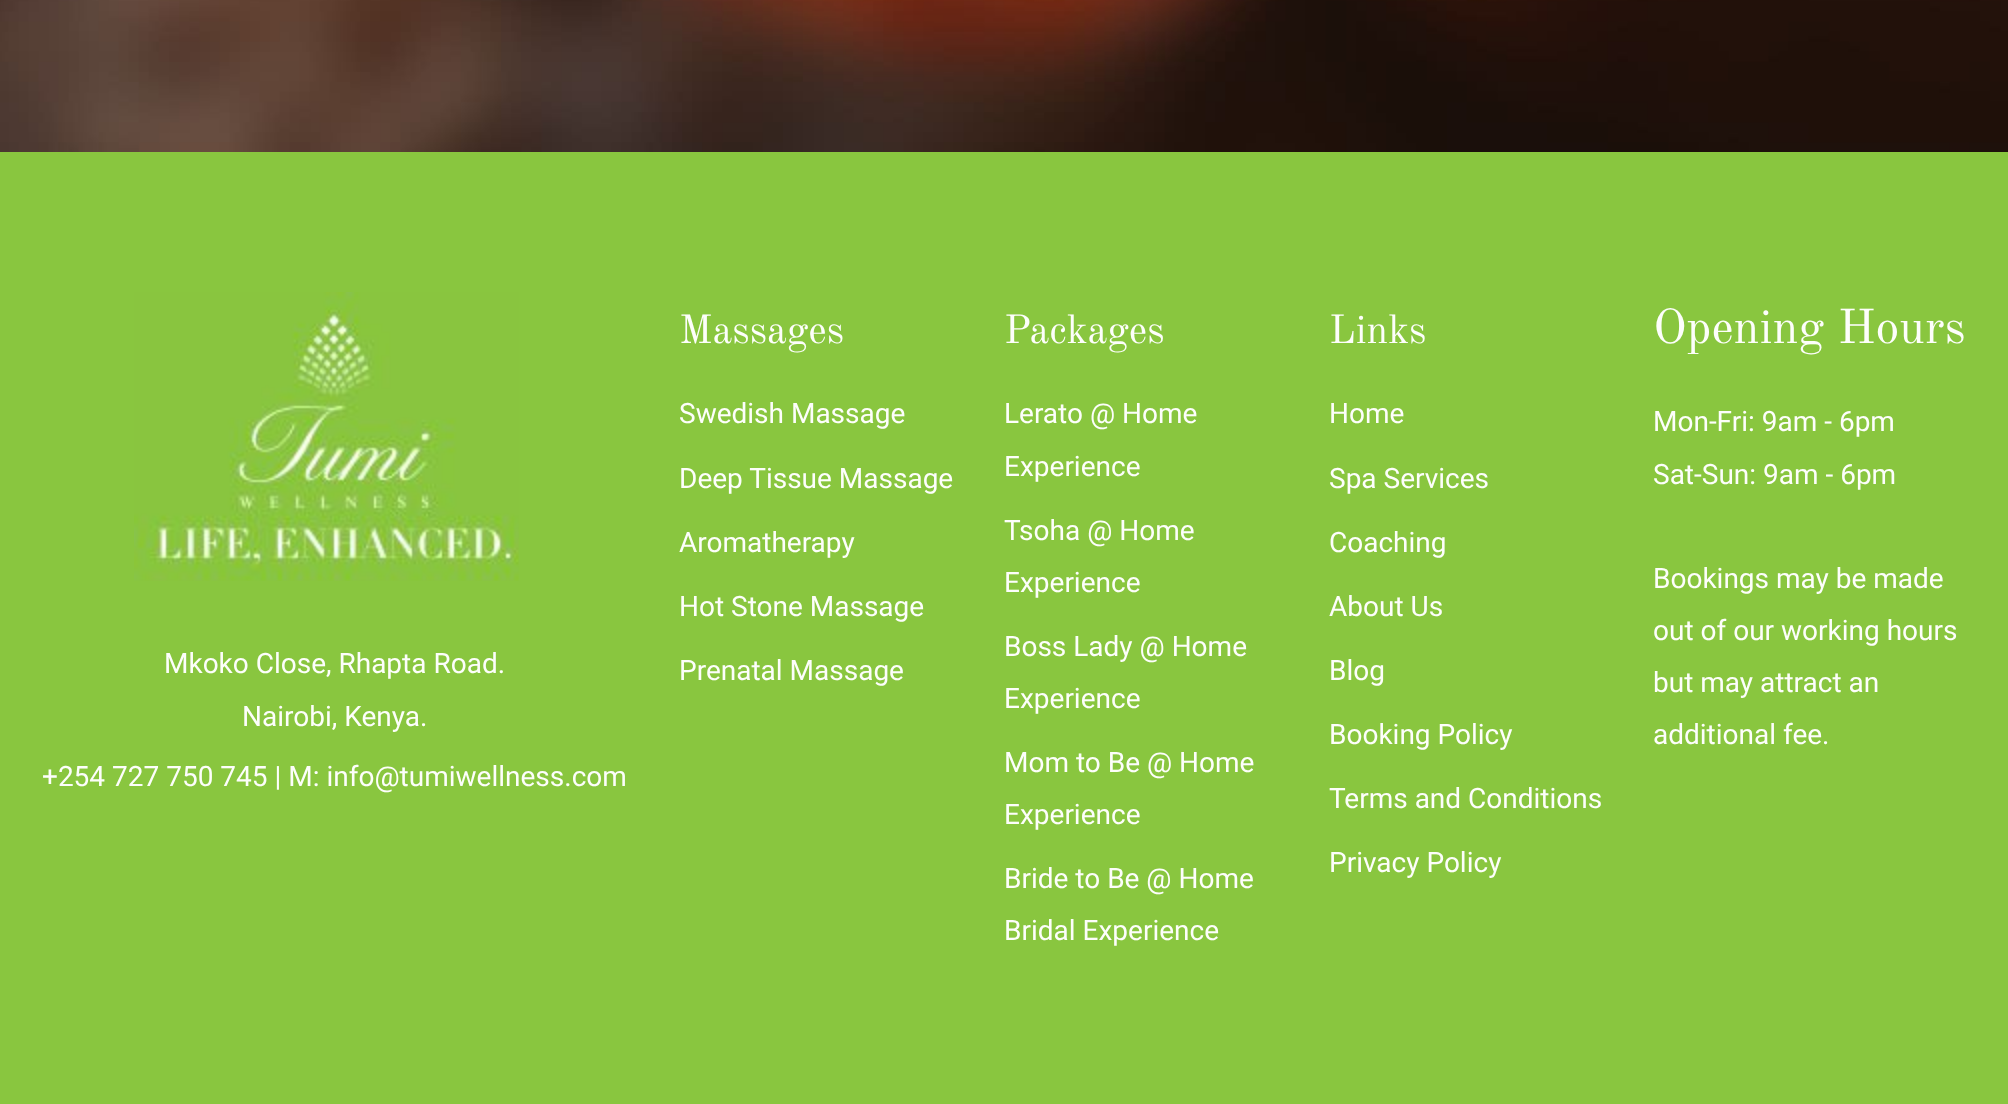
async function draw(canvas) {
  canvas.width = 2008;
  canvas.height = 1104;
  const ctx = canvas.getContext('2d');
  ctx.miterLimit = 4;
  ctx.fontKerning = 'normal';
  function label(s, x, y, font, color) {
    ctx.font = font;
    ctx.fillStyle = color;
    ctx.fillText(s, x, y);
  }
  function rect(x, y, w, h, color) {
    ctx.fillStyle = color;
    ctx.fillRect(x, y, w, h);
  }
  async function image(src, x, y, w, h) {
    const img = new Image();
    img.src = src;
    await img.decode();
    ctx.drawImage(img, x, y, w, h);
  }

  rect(0, 0, 2008, 1104, '#fff');
  await image('assets/img1.png', 0, 0, 2008, 152);
  rect(0, 152, 2008, 952, '#89c63f');
  await image('assets/img2.png', 134, 292, 385, 289);
  label('Mkoko Close, Rhapta Road.', 164, 673, '28px Roboto', '#fdfefb');
  label('Nairobi, Kenya.', 242, 726, '28px Roboto', '#fdfefb');
  label('+254 727 750 745 | M: info@tumiwellness.com', 42, 786, '28px Roboto', '#fdfefb');
  label('Massages', 679, 343, '40px Old Standard TT', '#fdfefb');
  label('Swedish Massage', 679, 423, '28px Roboto', '#fdfefb');
  label('Deep Tissue Massage', 679, 488, '28px Roboto', '#fdfefb');
  label('Aromatherapy', 679, 552, '28px Roboto', '#fdfefb');
  label('Hot Stone Massage', 679, 616, '28px Roboto', '#fdfefb');
  label('Prenatal Massage', 679, 680, '28px Roboto', '#fdfefb');
  label('Packages', 1004, 343, '40px Old Standard TT', '#fdfefb');
  label('Lerato @ Home', 1004, 423, '28px Roboto', '#fdfefb');
  label('Experience', 1004, 476, '28px Roboto', '#fdfefb');
  label('Tsoha @ Home', 1004, 540, '28px Roboto', '#fdfefb');
  label('Experience', 1004, 592, '28px Roboto', '#fdfefb');
  label('Boss Lady @ Home', 1004, 656, '28px Roboto', '#fdfefb');
  label('Experience', 1004, 708, '28px Roboto', '#fdfefb');
  label('Mom to Be @ Home', 1004, 772, '28px Roboto', '#fdfefb');
  label('Experience', 1004, 824, '28px Roboto', '#fdfefb');
  label('Bride to Be @ Home', 1004, 888, '28px Roboto', '#fdfefb');
  label('Bridal Experience', 1004, 940, '28px Roboto', '#fdfefb');
  label('Links', 1329, 343, '40px Old Standard TT', '#fdfefb');
  label('Home', 1329, 423, '28px Roboto', '#fdfefb');
  label('Spa Services', 1329, 488, '28px Roboto', '#fdfefb');
  label('Coaching', 1329, 552, '28px Roboto', '#fdfefb');
  label('About Us', 1329, 616, '28px Roboto', '#fdfefb');
  label('Blog', 1329, 680, '28px Roboto', '#fdfefb');
  label('Booking Policy', 1329, 744, '28px Roboto', '#fdfefb');
  label('Terms and Conditions', 1329, 808, '28px Roboto', '#fdfefb');
  label('Privacy Policy', 1329, 872, '28px Roboto', '#fdfefb');
  label('Opening Hours', 1653, 343, '48px Old Standard TT', '#fdfefb');
  label('Mon-Fri: 9am - 6pm', 1653, 431, '28px Roboto', '#fdfefb');
  label('Sat-Sun: 9am - 6pm', 1653, 484, '28px Roboto', '#fdfefb');
  label('Bookings may be made', 1653, 588, '28px Roboto', '#fdfefb');
  label('out of our working hours', 1653, 640, '28px Roboto', '#fdfefb');
  label('but may attract an', 1653, 692, '28px Roboto', '#fdfefb');
  label('additional fee.', 1653, 744, '28px Roboto', '#fdfefb');
}

draw(document.querySelector('canvas'));
